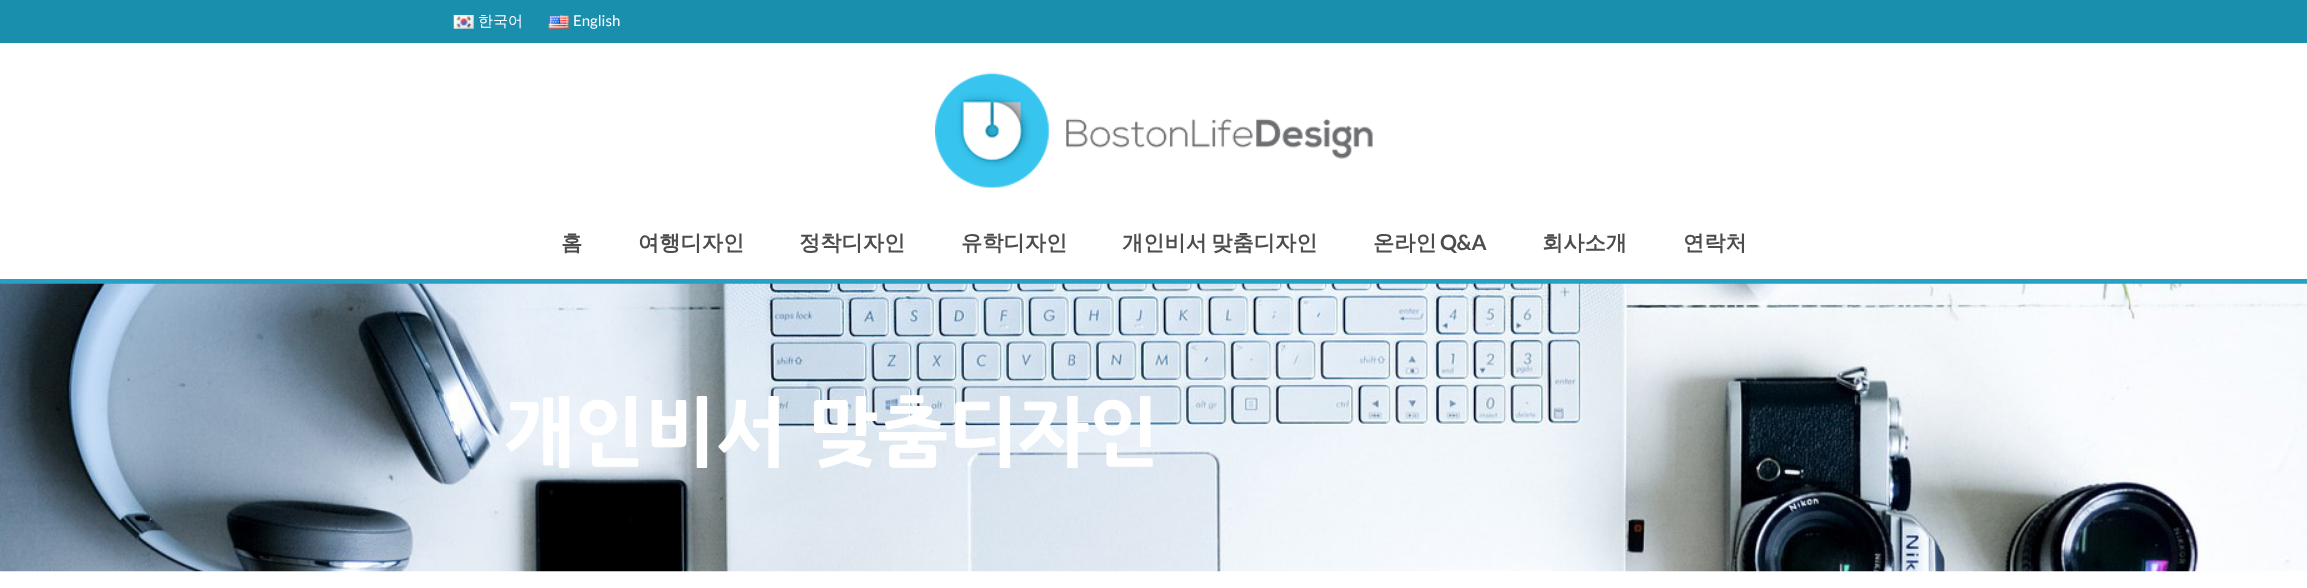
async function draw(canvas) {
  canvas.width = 2307;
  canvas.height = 588;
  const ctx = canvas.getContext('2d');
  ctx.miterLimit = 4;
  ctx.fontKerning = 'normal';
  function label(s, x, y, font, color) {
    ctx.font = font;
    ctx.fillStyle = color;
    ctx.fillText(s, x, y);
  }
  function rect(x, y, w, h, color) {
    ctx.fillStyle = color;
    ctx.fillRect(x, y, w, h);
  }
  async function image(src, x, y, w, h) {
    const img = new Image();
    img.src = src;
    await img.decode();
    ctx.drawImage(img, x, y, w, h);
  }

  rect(0, 0, 2307, 588, '#fff');
  rect(0, 279, 2307, 5, '#26a1c5');
  rect(0, 0, 2307, 43, '#1a8fad');
  await image('assets/img1.png', 453, 15, 21, 14);
  label('한국어', 478, 26, '500 15px WenQuanYi Zen Hei', '#fff');
  await image('assets/img2.png', 548, 15, 21, 14);
  label('English', 573, 26, '15px Lato', '#fff');
  await image('assets/img3.png', 935, 73, 438, 115);
  label('홈', 561, 250, 'bold 21.25px WenQuanYi Zen Hei', '#4c4c4c');
  label('여행디자인', 638, 250, 'bold 21.25px WenQuanYi Zen Hei', '#4c4c4c');
  label('정착디자인', 799, 250, 'bold 21.25px WenQuanYi Zen Hei', '#4c4c4c');
  label('유학디자인', 961, 250, 'bold 21.25px WenQuanYi Zen Hei', '#4c4c4c');
  ctx.wordSpacing = '-2px';
  label('개인비서 맞춤디자인', 1122, 250, 'bold 21.25px WenQuanYi Zen Hei', '#4c4c4c');
  ctx.wordSpacing = '0px';
  label('온라인', 1373, 250, 'bold 21.25px WenQuanYi Zen Hei', '#4c4c4c');
  label('Q&A', 1440, 250, 'bold 21.25px Lato', '#4c4c4c');
  label('회사소개', 1542, 250, 'bold 21.25px WenQuanYi Zen Hei', '#4c4c4c');
  label('연락처', 1683, 250, 'bold 21.25px WenQuanYi Zen Hei', '#4c4c4c');
  await image('assets/img4.png', 0, 283, 2307, 289);
  label('개인비서 맞춤디자인', 504, 460, '800 75px NanumGothic', '#fff');
}

draw(document.querySelector('canvas'));
